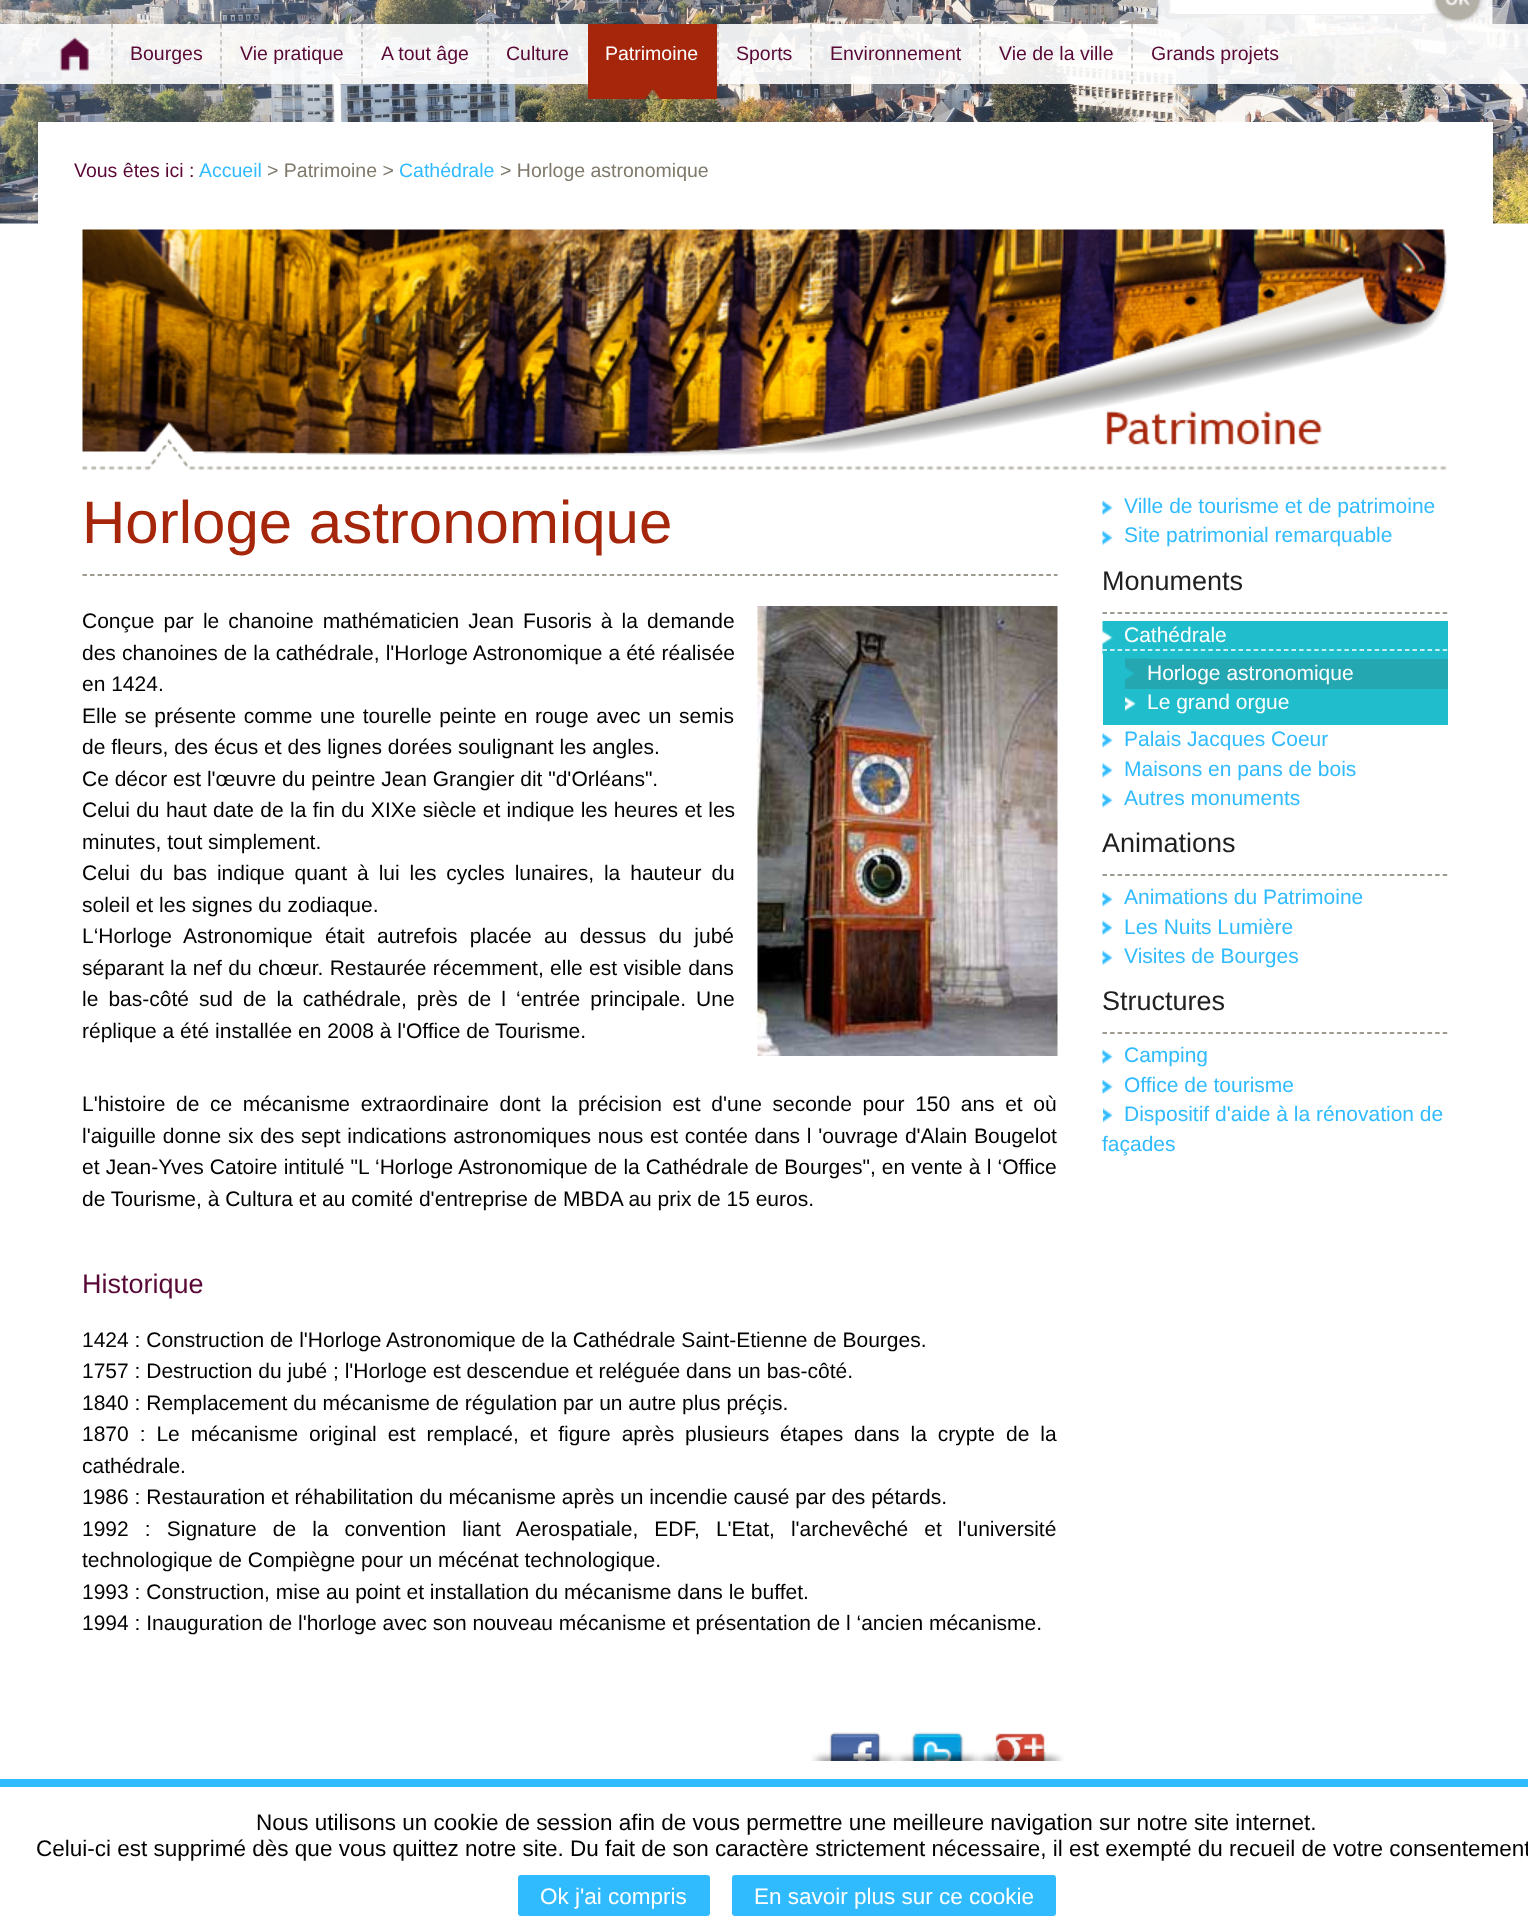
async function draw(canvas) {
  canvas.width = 1528;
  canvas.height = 1930;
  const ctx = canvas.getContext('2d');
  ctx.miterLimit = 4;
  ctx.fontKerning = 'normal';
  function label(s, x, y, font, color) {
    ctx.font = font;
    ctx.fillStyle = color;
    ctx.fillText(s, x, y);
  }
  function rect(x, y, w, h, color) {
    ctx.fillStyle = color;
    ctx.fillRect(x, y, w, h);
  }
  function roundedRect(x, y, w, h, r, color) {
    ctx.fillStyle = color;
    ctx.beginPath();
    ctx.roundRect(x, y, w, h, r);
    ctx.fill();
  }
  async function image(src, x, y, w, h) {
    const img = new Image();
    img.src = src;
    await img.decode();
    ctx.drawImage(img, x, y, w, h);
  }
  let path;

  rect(0, 0, 1528, 1930, '#fff');
  await image('assets/img1.png', 0, 0, 1528, 224);
  await image('assets/img2.png', 1156, 0, 337, 24);
  rect(1176, 13, 252, 1, '#fff');
  await image('assets/img3.png', 1432, 0, 52, 24);
  rect(0, 24, 1528, 60, '#ffffffe6');
  await image('assets/img4.png', 59, 37, 30, 34);
  path = new Path2D('M112 24V84');
  ctx.strokeStyle = '#bebbb4';
  ctx.lineWidth = 1.5;
  ctx.setLineDash([4.5, 3.44]);
  ctx.stroke(path);
  label('Bourges', 130, 60, '19.5px Liberation Sans', '#590835');
  path = new Path2D('M221 24V84');
  ctx.stroke(path);
  label('Vie pratique', 240, 60, '19.5px Liberation Sans', '#590835');
  path = new Path2D('M362 24V84');
  ctx.stroke(path);
  label('A tout âge', 381, 60, '19.5px Liberation Sans', '#590835');
  path = new Path2D('M488 24V84');
  ctx.stroke(path);
  label('Culture', 506, 60, '19.5px Liberation Sans', '#590835');
  await image('assets/img5.png', 588, 24, 129, 75);
  label('Patrimoine', 605, 60, '19.5px Liberation Sans', '#fff');
  path = new Path2D('M718 24V84');
  ctx.stroke(path);
  label('Sports', 736, 60, '19.5px Liberation Sans', '#590835');
  path = new Path2D('M811 24V84');
  ctx.stroke(path);
  label('Environnement', 830, 60, '19.5px Liberation Sans', '#590835');
  path = new Path2D('M980 24V84');
  ctx.stroke(path);
  label('Vie de la ville', 999, 60, '19.5px Liberation Sans', '#590835');
  path = new Path2D('M1132 24V84');
  ctx.stroke(path);
  label('Grands projets', 1151, 60, '19.5px Liberation Sans', '#590835');
  rect(38, 122, 1455, 102, '#fff');
  label('Vous êtes ici :', 74, 177, '19.5px Liberation Sans', '#590835');
  label('Accueil', 199, 177, '19.5px Liberation Sans', '#30bbff');
  label('> Patrimoine >', 267, 177, '19.5px Liberation Sans', '#7f796b');
  label('Cathédrale', 399, 177, '19.5px Liberation Sans', '#30bbff');
  label('> Horloge astronomique', 500, 177, '19.5px Liberation Sans', '#7f796b');
  await image('assets/img6.png', 82, 229, 1365, 241);
  path = new Path2D('M82.5 575H1057.5');
  ctx.strokeStyle = '#7f796b';
  ctx.setLineDash([4.5, 3.03]);
  ctx.stroke(path);
  label('Horloge astronomique', 82, 543, '60px Liberation Sans', '#a5260a');
  ctx.wordSpacing = '3.25px';
  label('Conçue par le chanoine mathématicien Jean Fusoris à la demande', 82, 628, '21px Liberation Sans', '#000');
  await image('assets/img7.png', 757, 606, 301, 450);
  ctx.wordSpacing = '0.25px';
  label('des chanoines de la cathédrale, l\'Horloge Astronomique a été réalisée', 82, 660, '21px Liberation Sans', '#000');
  ctx.wordSpacing = '0px';
  label('en 1424.', 82, 691, '21px Liberation Sans', '#000');
  ctx.wordSpacing = '1.75px';
  label('Elle se présente comme une tourelle peinte en rouge avec un semis', 82, 723, '21px Liberation Sans', '#000');
  ctx.wordSpacing = '0px';
  label('de fleurs, des écus et des lignes dorées soulignant les angles.', 82, 754, '21px Liberation Sans', '#000');
  label('Ce décor est l\'œuvre du peintre Jean Grangier dit "d\'Orléans".', 82, 786, '21px Liberation Sans', '#000');
  ctx.wordSpacing = '0.5px';
  label('Celui du haut date de la fin du XIXe siècle et indique les heures et les', 82, 817, '21px Liberation Sans', '#000');
  ctx.wordSpacing = '0px';
  label('minutes, tout simplement.', 82, 849, '21px Liberation Sans', '#000');
  ctx.wordSpacing = '4.1px';
  label('Celui du bas indique quant à lui les cycles lunaires, la hauteur du', 82, 880, '21px Liberation Sans', '#000');
  ctx.wordSpacing = '0px';
  label('soleil et les signes du zodiaque.', 82, 912, '21px Liberation Sans', '#000');
  ctx.wordSpacing = '6.5px';
  label('L‘Horloge Astronomique était autrefois placée au dessus du jubé', 82, 943, '21px Liberation Sans', '#000');
  ctx.wordSpacing = '0.5px';
  label('séparant la nef du chœur. Restaurée récemment, elle est visible dans', 82, 975, '21px Liberation Sans', '#000');
  ctx.wordSpacing = '4.25px';
  label('le bas-côté sud de la cathédrale, près de l ‘entrée principale. Une', 82, 1006, '21px Liberation Sans', '#000');
  ctx.wordSpacing = '0px';
  label('réplique a été installée en 2008 à l\'Office de Tourisme.', 82, 1038, '21px Liberation Sans', '#000');
  ctx.wordSpacing = '4.75px';
  label('L\'histoire de ce mécanisme extraordinaire dont la précision est d\'une seconde pour 150 ans et où', 82, 1111, '21px Liberation Sans', '#000');
  ctx.wordSpacing = '0.9px';
  label('l\'aiguille donne six des sept indications astronomiques nous est contée dans l \'ouvrage d\'Alain Bougelot', 82, 1143, '21px Liberation Sans', '#000');
  ctx.wordSpacing = '0.3px';
  label('et Jean-Yves Catoire intitulé "L ‘Horloge Astronomique de la Cathédrale de Bourges", en vente à l ‘Office', 82, 1174, '21px Liberation Sans', '#000');
  ctx.wordSpacing = '0px';
  label('de Tourisme, à Cultura et au comité d\'entreprise de MBDA au prix de 15 euros.', 82, 1206, '21px Liberation Sans', '#000');
  label('Historique', 82, 1293, '27px Liberation Sans', '#590835');
  label('1424 : Construction de l\'Horloge Astronomique de la Cathédrale Saint-Etienne de Bourges.', 82, 1347, '21px Liberation Sans', '#000');
  label('1757 : Destruction du jubé ; l\'Horloge est descendue et reléguée dans un bas-côté.', 82, 1378, '21px Liberation Sans', '#000');
  label('1840 : Remplacement du mécanisme de régulation par un autre plus préçis.', 82, 1410, '21px Liberation Sans', '#000');
  ctx.wordSpacing = '5.1px';
  label('1870 : Le mécanisme original est remplacé, et figure après plusieurs étapes dans la crypte de la', 82, 1441, '21px Liberation Sans', '#000');
  ctx.wordSpacing = '0px';
  label('cathédrale.', 82, 1473, '21px Liberation Sans', '#000');
  label('1986 : Restauration et réhabilitation du mécanisme après un incendie causé par des pétards.', 82, 1504, '21px Liberation Sans', '#000');
  ctx.wordSpacing = '10.25px';
  label('1992 : Signature de la convention liant Aerospatiale, EDF, L\'Etat, l\'archevêché et l\'université', 82, 1536, '21px Liberation Sans', '#000');
  ctx.wordSpacing = '0px';
  label('technologique de Compiègne pour un mécénat technologique.', 82, 1567, '21px Liberation Sans', '#000');
  label('1993 : Construction, mise au point et installation du mécanisme dans le buffet.', 82, 1599, '21px Liberation Sans', '#000');
  label('1994 : Inauguration de l\'horloge avec son nouveau mécanisme et présentation de l ‘ancien mécanisme.', 82, 1630, '21px Liberation Sans', '#000');
  await image('assets/img8.png', 811, 1732, 88, 29);
  await image('assets/img9.png', 894, 1732, 87, 29);
  await image('assets/img10.png', 976, 1733, 88, 28);
  await image('assets/img11.png', 1102, 500, 11, 15);
  label('Ville de tourisme et de patrimoine', 1124, 513, '21px Liberation Sans', '#30bbff');
  await image('assets/img11.png', 1102, 530, 11, 15);
  label('Site patrimonial remarquable', 1124, 542, '21px Liberation Sans', '#30bbff');
  path = new Path2D('M1102.5 613H1447.5');
  ctx.setLineDash([4.5, 3.06]);
  ctx.stroke(path);
  label('Monuments', 1102, 590, '27px Liberation Sans', '#202020');
  rect(1103, 621, 345, 104, '#20becc');
  await image('assets/img12.png', 1102, 621, 11, 33);
  label('Cathédrale', 1124, 642, '21px Liberation Sans', '#fff');
  path = new Path2D('M1102.5 650H1447.5');
  ctx.strokeStyle = '#fff';
  ctx.stroke(path);
  rect(1125, 659, 323, 30, '#25a7b2');
  await image('assets/img13.png', 1125, 658, 24, 22);
  label('Horloge astronomique', 1147, 680, '21px Liberation Sans', '#fff');
  await image('assets/img14.png', 1125, 697, 12, 14);
  label('Le grand orgue', 1147, 709, '21px Liberation Sans', '#fff');
  await image('assets/img15.png', 1102, 733, 11, 15);
  label('Palais Jacques Coeur', 1124, 746, '21px Liberation Sans', '#30bbff');
  await image('assets/img15.png', 1102, 763, 11, 15);
  label('Maisons en pans de bois', 1124, 776, '21px Liberation Sans', '#30bbff');
  await image('assets/img15.png', 1102, 793, 11, 15);
  label('Autres monuments', 1124, 805, '21px Liberation Sans', '#30bbff');
  path = new Path2D('M1102.5 875H1447.5');
  ctx.strokeStyle = '#7f796b';
  ctx.stroke(path);
  label('Animations', 1102, 852, '27px Liberation Sans', '#202020');
  await image('assets/img15.png', 1102, 892, 11, 15);
  label('Animations du Patrimoine', 1124, 904, '21px Liberation Sans', '#30bbff');
  await image('assets/img11.png', 1102, 920, 11, 15);
  label('Les Nuits Lumière', 1124, 934, '21px Liberation Sans', '#30bbff');
  await image('assets/img11.png', 1102, 950, 11, 15);
  label('Visites de Bourges', 1124, 963, '21px Liberation Sans', '#30bbff');
  path = new Path2D('M1102.5 1033H1447.5');
  ctx.stroke(path);
  label('Structures', 1102, 1010, '27px Liberation Sans', '#202020');
  await image('assets/img11.png', 1102, 1049, 11, 15);
  label('Camping', 1124, 1062, '21px Liberation Sans', '#30bbff');
  await image('assets/img11.png', 1102, 1079, 11, 15);
  label('Office de tourisme', 1124, 1092, '21px Liberation Sans', '#30bbff');
  await image('assets/img16.png', 1103, 1108, 10, 15);
  label('Dispositif d\'aide à la rénovation de', 1124, 1121, '21px Liberation Sans', '#30bbff');
  label('façades', 1102, 1151, '21px Liberation Sans', '#30bbff');
  rect(0, 1779, 1528, 8, '#30bbff');
  label('Nous utilisons un cookie de session afin de vous permettre une meilleure navigation sur notre site internet.', 256, 1830, '22.5px Liberation Sans', '#000');
  label('Celui-ci est supprimé dès que vous quittez notre site. Du fait de son caractère strictement nécessaire, il est exempté du recueil de votre consentement', 36, 1856, '22.5px Liberation Sans', '#000');
  roundedRect(518, 1875, 192, 41, 3, '#30bbff');
  label('Ok j\'ai compris', 540, 1904, '22.5px Liberation Sans', '#fff');
  roundedRect(732, 1875, 324, 41, 3, '#30bbff');
  label('En savoir plus sur ce cookie', 754, 1904, '22.5px Liberation Sans', '#fff');
}

draw(document.querySelector('canvas'));
